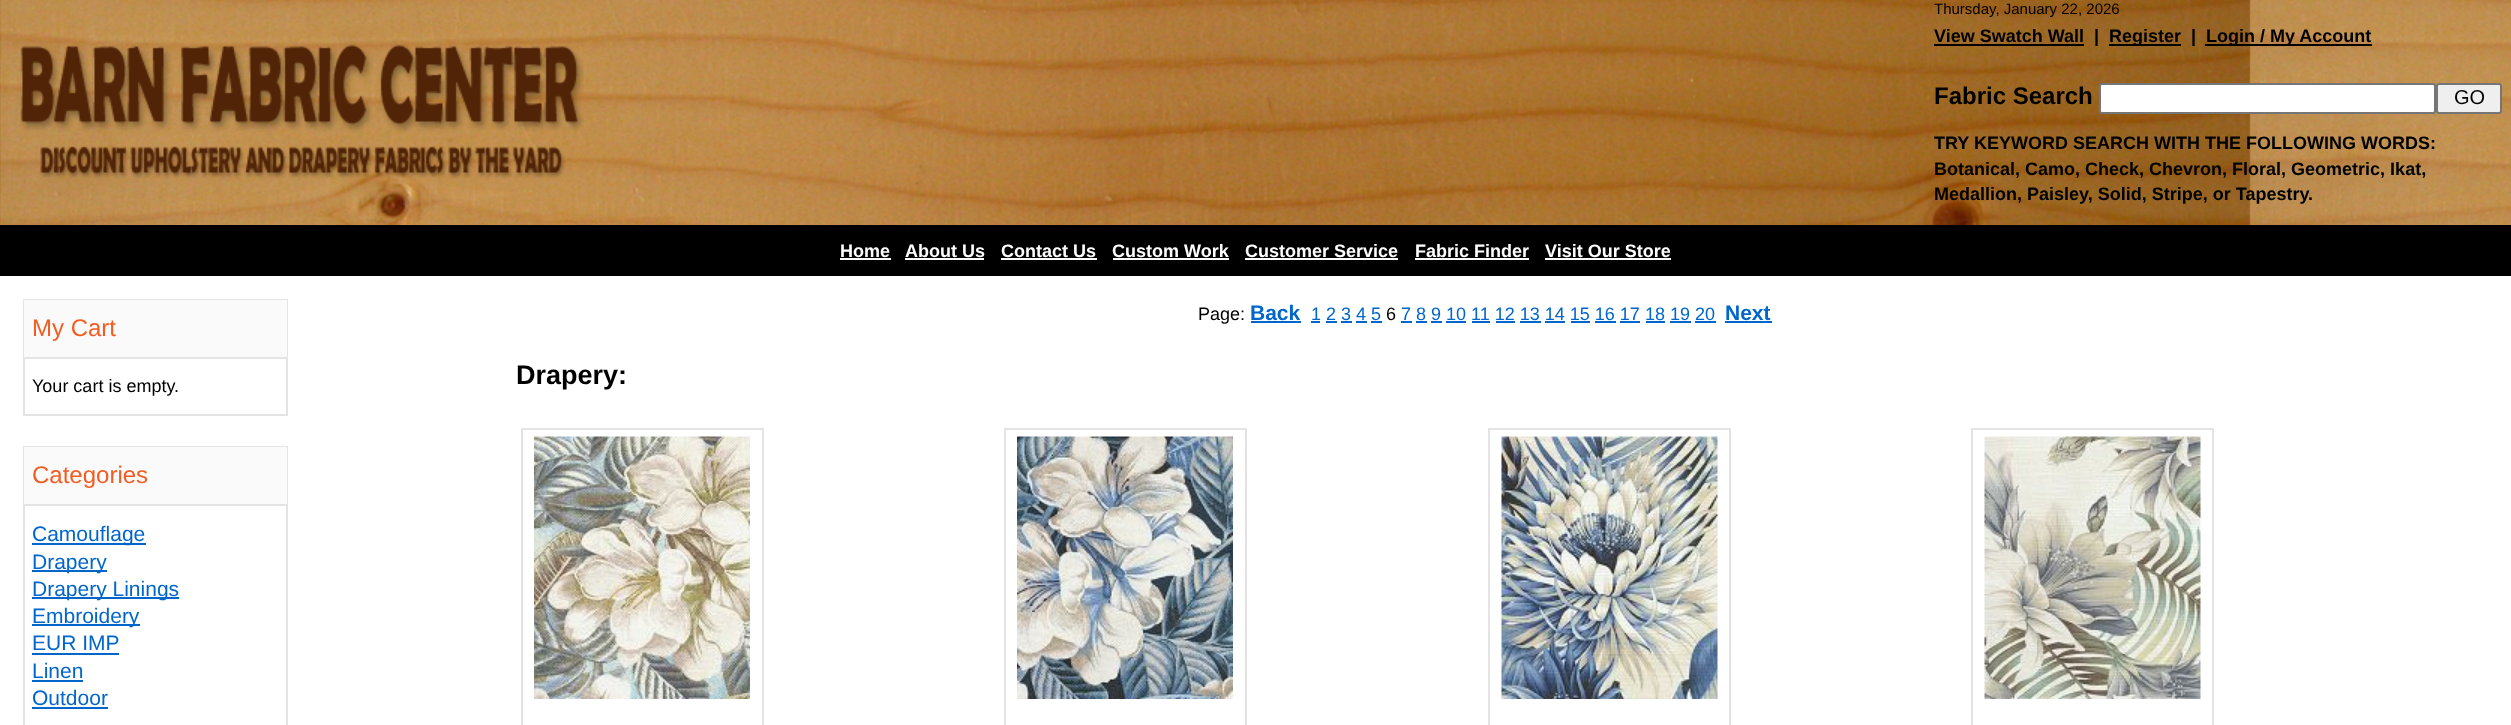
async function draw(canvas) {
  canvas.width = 2511;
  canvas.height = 725;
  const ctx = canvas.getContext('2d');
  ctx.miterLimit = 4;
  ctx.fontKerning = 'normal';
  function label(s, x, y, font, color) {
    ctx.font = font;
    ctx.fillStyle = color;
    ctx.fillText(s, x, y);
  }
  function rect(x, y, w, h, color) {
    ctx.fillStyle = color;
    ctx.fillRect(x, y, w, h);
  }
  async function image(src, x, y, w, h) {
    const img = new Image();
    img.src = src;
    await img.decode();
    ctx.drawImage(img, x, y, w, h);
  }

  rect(0, 0, 2511, 725, '#fff');
  await image('assets/img1.png', 0, 0, 2511, 225);
  await image('assets/img2.png', 20, 44, 564, 135);
  label('Thursday, January 22, 2026', 1934, 14, '15px Liberation Sans', '#000');
  label('View Swatch Wall', 1934, 42, 'bold 18px Liberation Sans', '#000');
  rect(1934, 44, 150, 2, '#000');
  label('|', 2094, 42, 'bold 18px Liberation Sans', '#000');
  rect(2109, 44, 72, 2, '#000');
  label('Register', 2109, 42, 'bold 18px Liberation Sans', '#000');
  label('|', 2191, 42, 'bold 18px Liberation Sans', '#000');
  rect(2205, 44, 167, 2, '#000');
  label('Login / My Account', 2206, 42, 'bold 18px Liberation Sans', '#000');
  label('Fabric Search', 1934, 104, 'bold 24px Liberation Sans', '#000');
  ctx.fillStyle = '#fff';
  ctx.beginPath();
  ctx.roundRect(2100, 84, 335, 29, 2);
  ctx.fill();
  ctx.strokeStyle = '#767676';
  ctx.lineWidth = 2;
  ctx.stroke();
  ctx.fillStyle = '#efefef';
  ctx.beginPath();
  ctx.roundRect(2437, 84, 64, 29, 2);
  ctx.fill();
  ctx.stroke();
  label('GO', 2454, 104, '20px Liberation Sans', '#000');
  label('TRY KEYWORD SEARCH WITH THE FOLLOWING WORDS:', 1934, 149, 'bold 18px Liberation Sans', '#000');
  label('Botanical, Camo, Check, Chevron, Floral, Geometric, Ikat,', 1934, 175, 'bold 18px Liberation Sans', '#000');
  label('Medallion, Paisley, Solid, Stripe, or Tapestry.', 1934, 200, 'bold 18px Liberation Sans', '#000');
  rect(0, 225, 2511, 51, '#000');
  label('Home', 840, 257, 'bold 18px Liberation Sans', '#fff');
  rect(840, 258, 51, 2, '#fff');
  label('About Us', 905, 257, 'bold 18px Liberation Sans', '#fff');
  rect(905, 258, 79, 2, '#fff');
  label('Contact Us', 1001, 257, 'bold 18px Liberation Sans', '#fff');
  rect(1001, 258, 96, 2, '#fff');
  label('Custom Work', 1112, 257, 'bold 18px Liberation Sans', '#fff');
  rect(1113, 258, 116, 2, '#fff');
  label('Customer Service', 1245, 257, 'bold 18px Liberation Sans', '#fff');
  rect(1245, 258, 153, 2, '#fff');
  label('Fabric Finder', 1415, 257, 'bold 18px Liberation Sans', '#fff');
  rect(1415, 258, 114, 2, '#fff');
  label('Visit Our Store', 1545, 257, 'bold 18px Liberation Sans', '#fff');
  rect(1545, 258, 126, 2, '#fff');
  ctx.strokeStyle = '#e4e4e4';
  ctx.strokeRect(24, 300, 263, 115);
  rect(24, 300, 263, 57, '#fafafa');
  rect(24, 357, 263, 2, '#e4e4e4');
  label('My Cart', 32, 336, '24px Liberation Sans', '#f25d23');
  label('Your cart is empty.', 32, 392, '18px Liberation Sans', '#000');
  ctx.strokeRect(24, 447, 263, 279);
  rect(24, 447, 263, 57, '#fafafa');
  rect(24, 504, 263, 2, '#e4e4e4');
  label('Categories', 32, 483, '24px Liberation Sans', '#f25d23');
  rect(32, 543, 114, 2, '#06c');
  label('Camouflage', 32, 541, '21px Liberation Sans', '#06c');
  rect(32, 570, 75, 2, '#06c');
  label('Drapery', 32, 569, '21px Liberation Sans', '#06c');
  rect(32, 597, 147, 2, '#06c');
  label('Drapery Linings', 32, 596, '21px Liberation Sans', '#06c');
  rect(32, 624, 108, 2, '#06c');
  label('Embroidery', 32, 623, '21px Liberation Sans', '#06c');
  label('EUR IMP', 32, 650, '21px Liberation Sans', '#06c');
  rect(32, 653, 87, 2, '#06c');
  label('Linen', 32, 678, '21px Liberation Sans', '#06c');
  rect(32, 680, 51, 2, '#06c');
  label('Outdoor', 32, 705, '21px Liberation Sans', '#06c');
  rect(32, 707, 76, 2, '#06c');
  label('Page:', 1198, 320, '18px Liberation Sans', '#000');
  label('Back', 1250, 320, 'bold 21px Liberation Sans', '#06c');
  rect(1251, 321, 50, 2, '#06c');
  label('1 2 3 4 5', 1311, 320, '18px Liberation Sans', '#06c');
  rect(1311, 321, 9, 2, '#06c');
  label('6', 1386, 320, '18px Liberation Sans', '#000');
  label('7 8 9 10 11 12 13 14 15 16 17 18 19 20', 1401, 320, '18px Liberation Sans', '#06c');
  rect(1401, 321, 11, 2, '#06c');
  label('Next', 1725, 320, 'bold 21px Liberation Sans', '#06c');
  rect(1725, 321, 47, 2, '#06c');
  rect(1326, 321, 11, 2, '#06c');
  rect(1341, 321, 11, 2, '#06c');
  rect(1356, 321, 11, 2, '#06c');
  rect(1371, 321, 11, 2, '#06c');
  rect(1416, 321, 11, 2, '#06c');
  rect(1431, 321, 11, 2, '#06c');
  rect(1446, 321, 20, 2, '#06c');
  rect(1472, 321, 18, 2, '#06c');
  rect(1496, 321, 19, 2, '#06c');
  rect(1520, 321, 21, 2, '#06c');
  rect(1545, 321, 20, 2, '#06c');
  rect(1571, 321, 19, 2, '#06c');
  rect(1595, 321, 21, 2, '#06c');
  rect(1620, 321, 20, 2, '#06c');
  rect(1646, 321, 19, 2, '#06c');
  rect(1670, 321, 21, 2, '#06c');
  rect(1695, 321, 21, 2, '#06c');
  label('Drapery:', 516, 384, 'bold 27px Liberation Sans', '#000');
  ctx.strokeRect(522, 429, 241, 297);
  await image('assets/img3.png', 534, 436, 216, 263);
  ctx.strokeRect(1005, 429, 241, 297);
  await image('assets/img4.png', 1017, 436, 216, 263);
  ctx.strokeRect(1489, 429, 241, 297);
  await image('assets/img5.png', 1501, 436, 217, 263);
  ctx.strokeRect(1972, 429, 241, 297);
  await image('assets/img6.png', 1984, 436, 217, 263);
}

draw(document.querySelector('canvas'));
